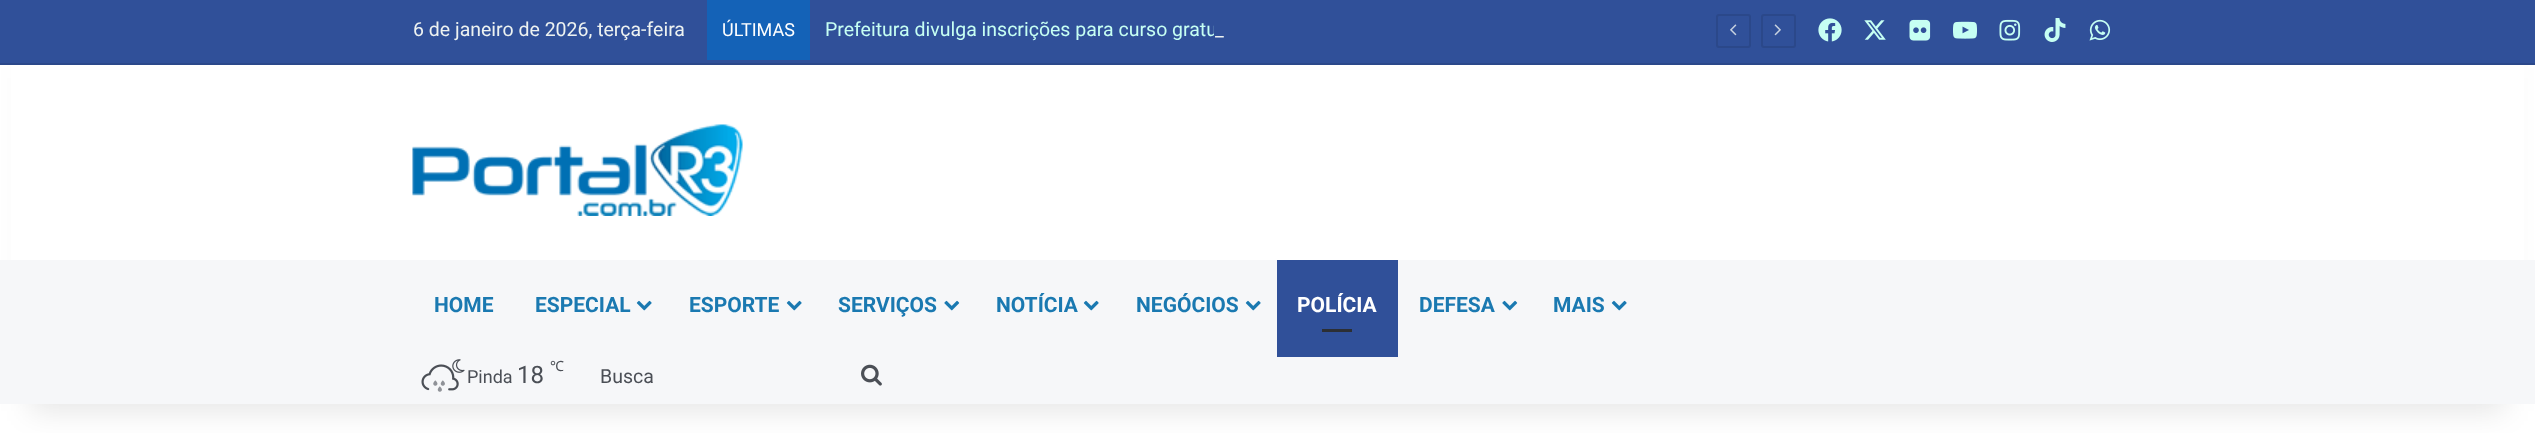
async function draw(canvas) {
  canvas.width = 2535;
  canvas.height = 433;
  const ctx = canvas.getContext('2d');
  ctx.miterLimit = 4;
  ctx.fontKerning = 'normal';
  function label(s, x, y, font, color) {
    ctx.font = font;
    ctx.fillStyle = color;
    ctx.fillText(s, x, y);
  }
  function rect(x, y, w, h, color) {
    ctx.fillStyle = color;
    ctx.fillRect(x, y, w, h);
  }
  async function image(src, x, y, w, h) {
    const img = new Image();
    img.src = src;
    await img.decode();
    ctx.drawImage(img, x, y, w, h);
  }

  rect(0, 0, 2535, 433, '#fff');
  ctx.fillStyle = '#0000001a';
  ctx.filter = 'blur(15px)';
  ctx.beginPath();
  ctx.rect(30, 68, 2475, 343);
  ctx.fill();
  ctx.filter = 'none';
  rect(11, 65, 2513, 195, '#fff');
  rect(0, 0, 2535, 63, '#305099');
  rect(0, 63, 2535, 2, '#2b488a');
  label('6 de janeiro de 2026, terça-feira', 413, 36, '19.5px Roboto', '#edf2f1');
  rect(707, 0, 103, 60, '#1462b7');
  label('ÚLTIMAS', 722, 36, '18px Roboto', '#fff');
  label('Prefeitura divulga inscrições para curso gratu', 825, 36, '19.5px Roboto', '#c6fff3');
  rect(1214, 25, 2, 11, '#305099');
  label('_', 1215, 36, '19.5px Roboto', '#edf2f1');
  ctx.beginPath();
  ctx.roundRect(1717, 15, 33, 32, 2);
  ctx.strokeStyle = '#2b488a';
  ctx.lineWidth = 2;
  ctx.stroke();
  await image('assets/img1.png', 1730, 24, 7, 12);
  ctx.beginPath();
  ctx.roundRect(1762, 15, 33, 32, 2);
  ctx.stroke();
  await image('assets/img2.png', 1774, 24, 7, 12);
  await image('assets/img3.png', 1818, 18, 24, 24);
  await image('assets/img4.png', 1864, 20, 22, 20);
  await image('assets/img5.png', 1909, 19, 22, 22);
  await image('assets/img6.png', 1953, 21, 24, 18);
  await image('assets/img7.png', 1999, 19, 22, 22);
  await image('assets/img8.png', 2044, 18, 22, 24);
  await image('assets/img9.png', 2089, 19, 22, 22);
  await image('assets/img10.png', 412, 124, 331, 92);
  rect(0, 260, 2535, 144, '#f6f7f9');
  label('HOME', 434, 312, 'bold 21px Roboto', '#1a79b1');
  label('ESPECIAL', 535, 312, 'bold 21px Roboto', '#1a79b1');
  await image('assets/img11.png', 636, 300, 16, 11);
  label('ESPORTE', 689, 312, 'bold 21px Roboto', '#1a79b1');
  await image('assets/img11.png', 786, 300, 16, 11);
  label('SERVIÇOS', 838, 312, 'bold 21px Roboto', '#1a79b1');
  await image('assets/img12.png', 944, 300, 16, 11);
  label('NOTÍCIA', 996, 312, 'bold 21px Roboto', '#1a79b1');
  await image('assets/img11.png', 1083, 300, 16, 11);
  label('NEGÓCIOS', 1136, 312, 'bold 21px Roboto', '#1a79b1');
  await image('assets/img11.png', 1245, 300, 16, 11);
  rect(1277, 260, 121, 97, '#305099');
  label('POLÍCIA', 1297, 312, 'bold 21px Roboto', '#fff');
  rect(1322, 329, 30, 3, '#2c2f34');
  label('DEFESA', 1419, 312, 'bold 21px Roboto', '#1a79b1');
  await image('assets/img12.png', 1502, 300, 16, 11);
  label('MAIS', 1553, 312, 'bold 21px Roboto', '#1a79b1');
  await image('assets/img11.png', 1611, 300, 16, 11);
  await image('assets/img13.png', 452, 359, 13, 14);
  await image('assets/img14.png', 421, 364, 38, 27);
  await image('assets/img15.png', 433, 380, 5, 6);
  await image('assets/img16.png', 440, 380, 5, 6);
  await image('assets/img16.png', 437, 386, 5, 6);
  label('Pinda', 467, 383, '18px Roboto', '#4b4f56');
  label('18', 517, 383, '24px Roboto', '#4b4f56');
  label('℃', 550, 371, '14px Noto Sans', '#4b4f56');
  label('Busca', 600, 383, '19.5px Roboto', '#4b4f56');
  await image('assets/img17.png', 861, 364, 21, 22);
}

draw(document.querySelector('canvas'));
